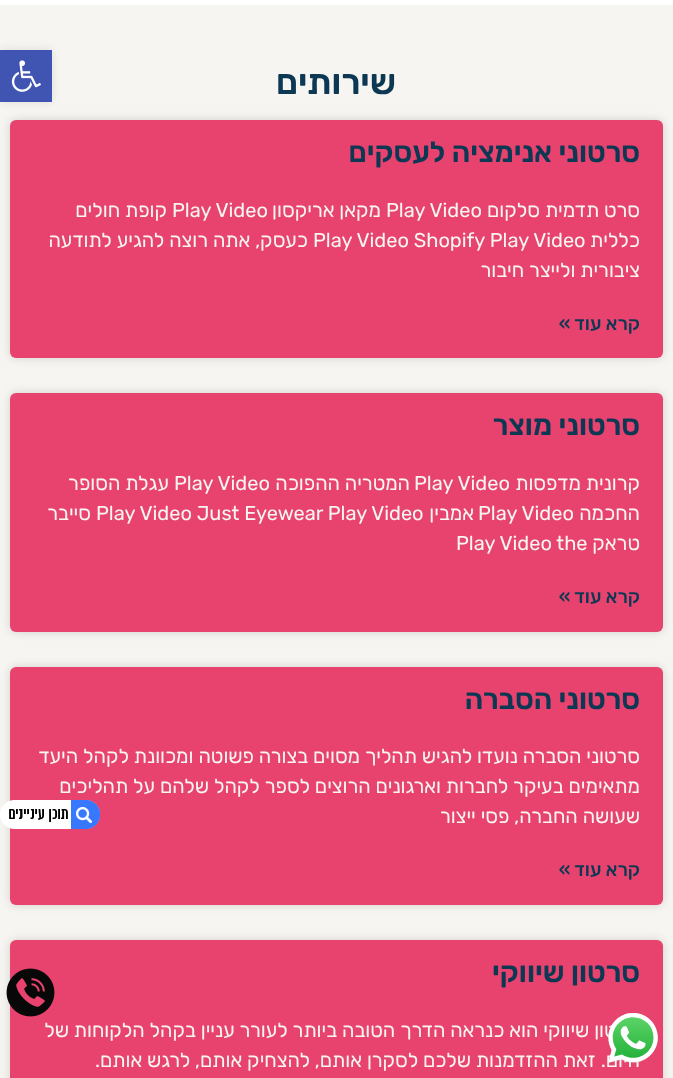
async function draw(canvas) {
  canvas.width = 673;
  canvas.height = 1078;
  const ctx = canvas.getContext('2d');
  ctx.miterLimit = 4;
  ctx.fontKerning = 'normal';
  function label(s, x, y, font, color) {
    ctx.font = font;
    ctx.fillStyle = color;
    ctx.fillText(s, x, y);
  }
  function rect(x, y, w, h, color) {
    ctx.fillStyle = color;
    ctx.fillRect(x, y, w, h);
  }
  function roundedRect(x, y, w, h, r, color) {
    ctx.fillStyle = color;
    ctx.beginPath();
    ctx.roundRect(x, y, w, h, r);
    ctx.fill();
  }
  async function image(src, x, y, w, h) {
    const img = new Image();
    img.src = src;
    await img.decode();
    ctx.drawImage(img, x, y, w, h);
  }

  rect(0, 0, 673, 1078, '#fff');
  rect(0, 5, 673, 1073, '#f7f5f1');
  ctx.direction = 'rtl';
  label('שירותים', 396, 94, '600 35px Rubik', '#0d3853');
  ctx.fillStyle = '#00000026';
  ctx.filter = 'blur(5px)';
  ctx.beginPath();
  ctx.roundRect(10, 120, 653, 238, 6);
  ctx.fill();
  ctx.filter = 'none';
  roundedRect(10, 120, 653, 238, 6, '#e8436e');
  label('סרטוני אנימציה לעסקים', 640, 162, '600 29px Rubik', '#0d3853');
  label('סרט תדמית סלקום', 640, 217, '20px Rubik', '#f7f5f1');
  ctx.direction = 'ltr';
  label('Play Video', 386, 217, '20px Rubik', '#f7f5f1');
  ctx.direction = 'rtl';
  label('מקאן אריקסון', 381, 217, '20px Rubik', '#f7f5f1');
  ctx.direction = 'ltr';
  label('Play Video', 172, 217, '20px Rubik', '#f7f5f1');
  ctx.direction = 'rtl';
  label('קופת חולים', 167, 217, '20px Rubik', '#f7f5f1');
  label('כללית', 640, 247, '20px Rubik', '#f7f5f1');
  ctx.direction = 'ltr';
  label('Play Video Shopify Play Video', 313, 247, '20px Rubik', '#f7f5f1');
  ctx.direction = 'rtl';
  label('כעסק, אתה רוצה להגיע לתודעה', 308, 247, '20px Rubik', '#f7f5f1');
  label('ציבורית ולייצר חיבור', 640, 277, '20px Rubik', '#f7f5f1');
  label('קרא עוד »', 640, 330, '500 19px Rubik', '#0d3853');
  ctx.fillStyle = '#00000026';
  ctx.filter = 'blur(5px)';
  ctx.beginPath();
  ctx.roundRect(10, 393, 653, 239, 6);
  ctx.fill();
  ctx.filter = 'none';
  roundedRect(10, 393, 653, 239, 6, '#e8436e');
  label('סרטוני מוצר', 640, 435, '600 29px Rubik', '#0d3853');
  label('קרונית מדפסות', 640, 490, '20px Rubik', '#f7f5f1');
  ctx.direction = 'ltr';
  label('Play Video', 414, 490, '20px Rubik', '#f7f5f1');
  ctx.direction = 'rtl';
  label('המטריה ההפוכה', 410, 490, '20px Rubik', '#f7f5f1');
  ctx.direction = 'ltr';
  label('Play Video', 174, 490, '20px Rubik', '#f7f5f1');
  ctx.direction = 'rtl';
  label('עגלת הסופר', 169, 490, '20px Rubik', '#f7f5f1');
  label('החכמה', 640, 520, '20px Rubik', '#f7f5f1');
  ctx.direction = 'ltr';
  label('Play Video', 478, 520, '20px Rubik', '#f7f5f1');
  ctx.direction = 'rtl';
  label('אמבין', 474, 520, '20px Rubik', '#f7f5f1');
  ctx.direction = 'ltr';
  label('Play Video Just Eyewear Play Video', 96, 520, '20px Rubik', '#f7f5f1');
  ctx.direction = 'rtl';
  label('סייבר', 91, 520, '20px Rubik', '#f7f5f1');
  label('טראק', 640, 550, '20px Rubik', '#f7f5f1');
  ctx.direction = 'ltr';
  label('Play Video the', 456, 550, '20px Rubik', '#f7f5f1');
  ctx.direction = 'rtl';
  label('קרא עוד »', 640, 603, '500 19px Rubik', '#0d3853');
  ctx.fillStyle = '#00000026';
  ctx.filter = 'blur(5px)';
  ctx.beginPath();
  ctx.roundRect(10, 667, 653, 238, 6);
  ctx.fill();
  ctx.filter = 'none';
  roundedRect(10, 667, 653, 238, 6, '#e8436e');
  label('סרטוני הסברה', 640, 709, '600 29px Rubik', '#0d3853');
  label('סרטוני הסברה נועדו להגיש תהליך מסוים בצורה פשוטה ומכוונת לקהל היעד', 640, 763, '20px Rubik', '#f7f5f1');
  label('מתאימים בעיקר לחברות וארגונים הרוצים לספר לקהל שלהם על תהליכים', 640, 793, '20px Rubik', '#f7f5f1');
  label('שעושה החברה, פסי ייצור', 640, 823, '20px Rubik', '#f7f5f1');
  label('קרא עוד »', 640, 876, '500 19px Rubik', '#0d3853');
  ctx.fillStyle = '#00000026';
  ctx.filter = 'blur(5px)';
  ctx.beginPath();
  ctx.roundRect(10, 940, 653, 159, 6);
  ctx.fill();
  ctx.filter = 'none';
  roundedRect(10, 940, 653, 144, 6, '#e8436e');
  label('סרטון שיווקי', 640, 982, '600 29px Rubik', '#0d3853');
  label('סרטון שיווקי הוא כנראה הדרך הטובה ביותר לעורר עניין בקהל הלקוחות של', 640, 1037, '20px Rubik', '#f7f5f1');
  label('היום. זאת ההזדמנות שלכם לסקרן אותם, להצחיק אותם, לרגש אותם.', 640, 1067, '20px Rubik', '#f7f5f1');
  ctx.fillStyle = '#0000001a';
  ctx.filter = 'blur(5px)';
  ctx.beginPath();
  ctx.rect(0, 50, 52, 52);
  ctx.fill();
  ctx.filter = 'none';
  rect(0, 50, 52, 52, '#4054b2');
  await image('assets/img1.png', 11, 60, 30, 32);
  await image('assets/img2.png', 0, 800, 100, 29);
  await image('assets/img3.png', 6, 968, 49, 49);
  await image('assets/img4.png', 608, 1013, 50, 50);
}

draw(document.querySelector('canvas'));
